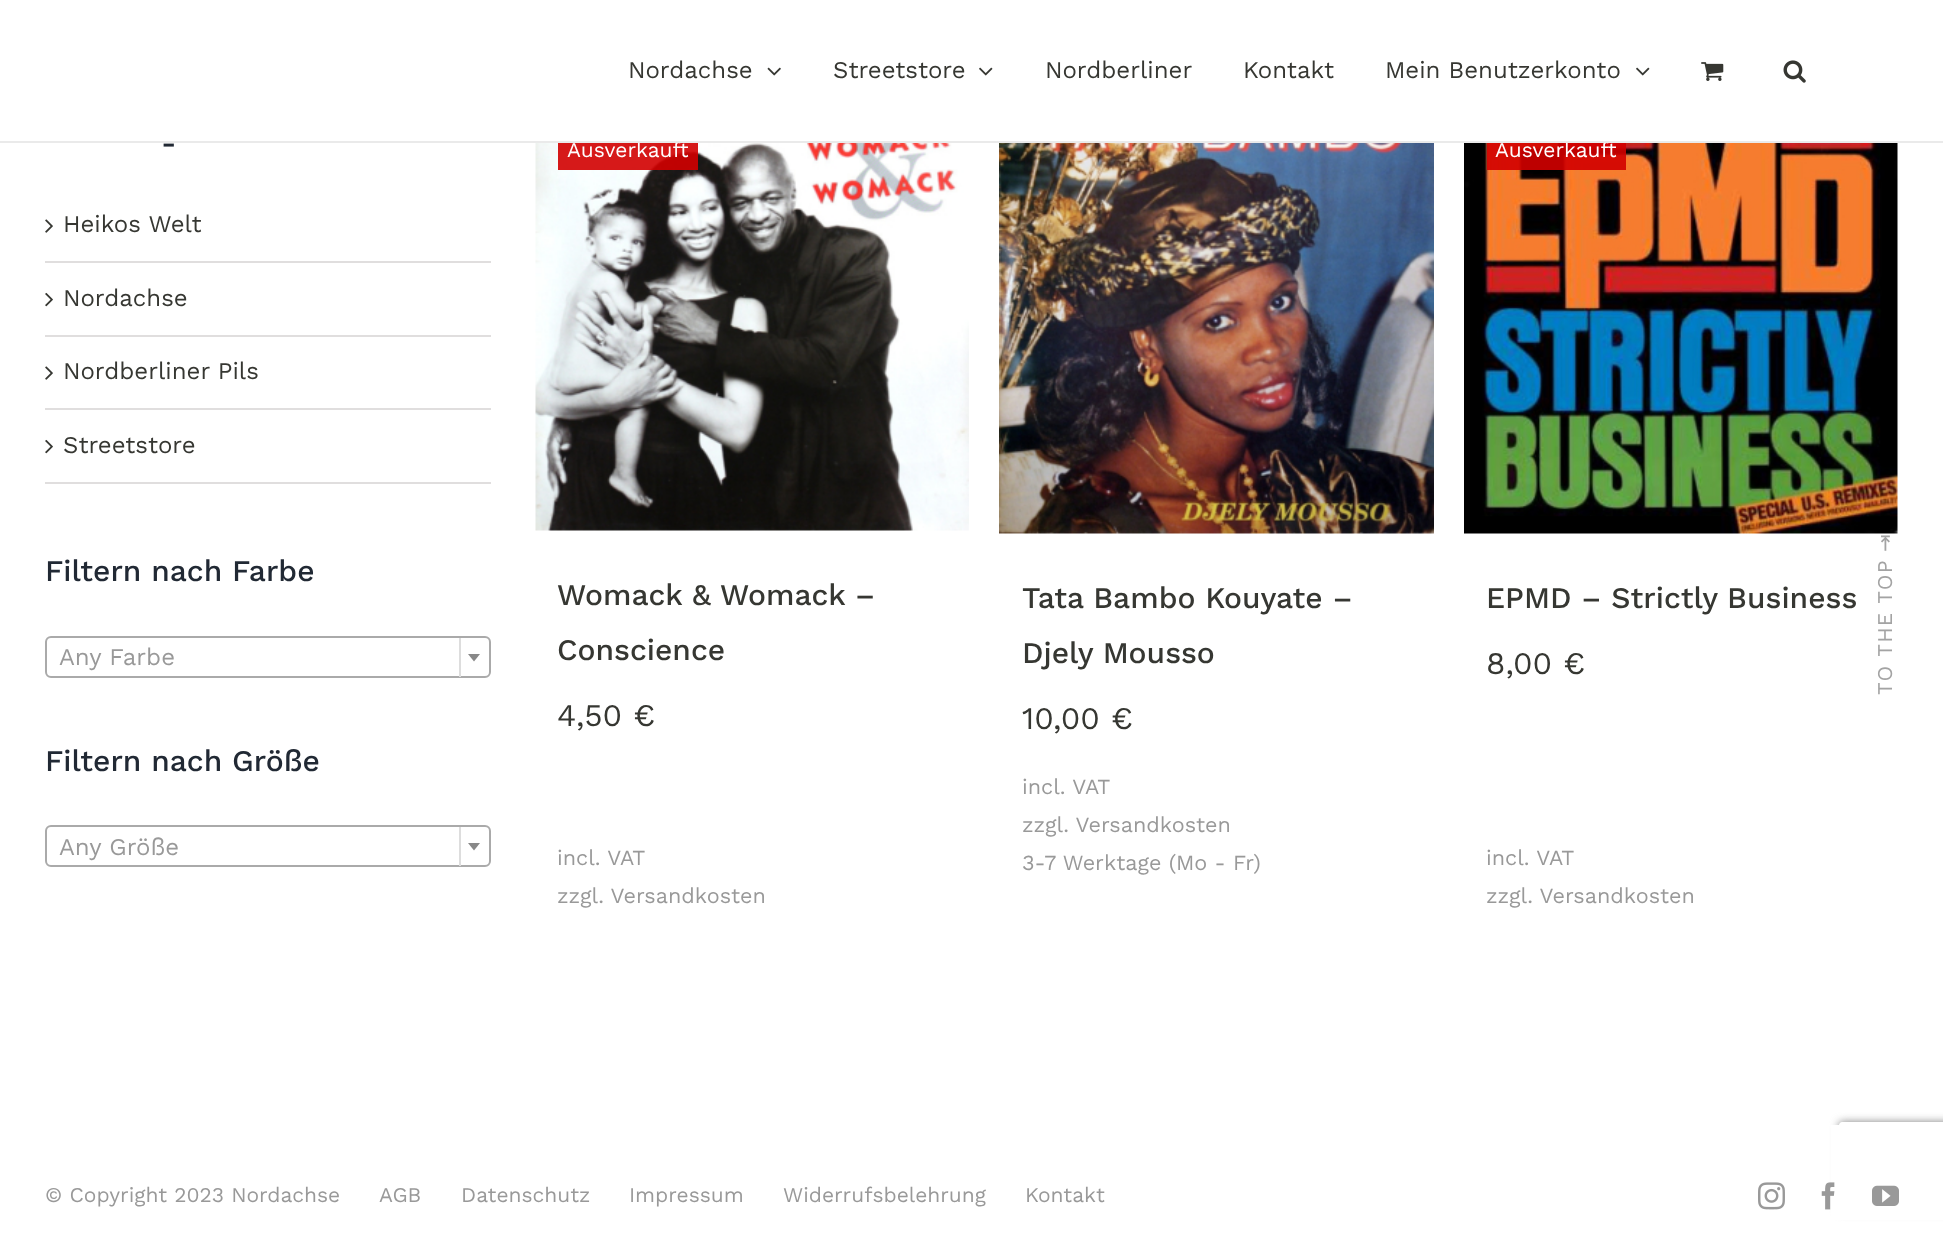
async function draw(canvas) {
  canvas.width = 1943;
  canvas.height = 1233;
  const ctx = canvas.getContext('2d');
  ctx.miterLimit = 4;
  ctx.fontKerning = 'normal';
  function label(s, x, y, font, color) {
    ctx.font = font;
    ctx.fillStyle = color;
    ctx.fillText(s, x, y);
  }
  function rect(x, y, w, h, color) {
    ctx.fillStyle = color;
    ctx.fillRect(x, y, w, h);
  }
  async function image(src, x, y, w, h) {
    const img = new Image();
    img.src = src;
    await img.decode();
    ctx.drawImage(img, x, y, w, h);
  }
  let path;

  rect(0, 0, 1943, 1233, '#fff');
  await image('assets/img7.png', 535, 143, 434, 388);
  rect(558, 143, 140, 27, '#d20000e6');
  label('Ausverkauft', 567, 157, '21px Work Sans', '#fff');
  await image('assets/img9.png', 1464, 143, 434, 391);
  rect(1487, 143, 139, 27, '#d20000e6');
  label('Ausverkauft', 1495, 157, '21px Work Sans', '#fff');
  rect(0, 141, 1943, 2, '#eaeaea');
  label('Nordachse', 628, 78, '24px Work Sans', '#363732');
  await image('assets/img1.png', 767, 67, 14, 9);
  label('Streetstore', 833, 78, '24px Work Sans', '#363732');
  await image('assets/img2.png', 979, 67, 14, 9);
  label('Nordberliner', 1045, 78, '24px Work Sans', '#363732');
  label('Kontakt', 1243, 78, '24px Work Sans', '#363732');
  label('Mein Benutzerkonto', 1385, 78, '24px Work Sans', '#363732');
  await image('assets/img2.png', 1636, 67, 14, 9);
  await image('assets/img3.png', 1701, 62, 23, 19);
  await image('assets/img4.png', 1783, 60, 23, 23);
  label('-', 161, 153, '500 30px Work Sans', '#212934');
  rect(45, 261, 446, 2, '#e0dede');
  await image('assets/img5.png', 45, 219, 8, 14);
  label('Heikos Welt', 63, 232, '24px Work Sans', '#363732');
  rect(45, 335, 446, 2, '#e0dede');
  await image('assets/img6.png', 45, 292, 8, 15);
  label('Nordachse', 63, 306, '24px Work Sans', '#363732');
  rect(45, 408, 446, 2, '#e0dede');
  await image('assets/img5.png', 45, 366, 8, 14);
  label('Nordberliner Pils', 63, 379, '24px Work Sans', '#363732');
  rect(45, 482, 446, 2, '#e0dede');
  await image('assets/img6.png', 45, 439, 8, 15);
  label('Streetstore', 63, 453, '24px Work Sans', '#363732');
  label('Filtern nach Farbe', 45, 581, '500 30px Work Sans', '#212934');
  ctx.beginPath();
  ctx.roundRect(46, 637, 444, 40, 5);
  ctx.strokeStyle = '#aaa';
  ctx.lineWidth = 2;
  ctx.stroke();
  label('Any Farbe', 59, 665, '24px Work Sans', '#999');
  rect(459, 638, 2, 39, '#ddd');
  ctx.fillStyle = '#888';
  path = new Path2D('M468 654H480L474 661.5Z');
  ctx.fill(path);
  label('Filtern nach Größe', 45, 771, '500 30px Work Sans', '#212934');
  ctx.beginPath();
  ctx.roundRect(46, 826, 444, 40, 5);
  ctx.stroke();
  label('Any Größe', 59, 855, '24px Work Sans', '#999');
  rect(459, 827, 2, 39, '#ddd');
  ctx.fillStyle = '#888';
  path = new Path2D('M468 843H480L474 850.5Z');
  ctx.fill(path);
  label('Womack & Womack –', 557, 605, '500 30px Work Sans', '#363732');
  label('Conscience', 557, 660, '500 30px Work Sans', '#363732');
  label('4,50 €', 557, 726, '31.5px Work Sans', '#363732');
  label('incl. VAT', 557, 865, '21.6px Work Sans', '#999');
  label('zzgl. Versandkosten', 557, 903, '21.6px Work Sans', '#999');
  await image('assets/img8.png', 999, 143, 435, 391);
  label('Tata Bambo Kouyate –', 1022, 608, '500 30px Work Sans', '#363732');
  label('Djely Mousso', 1022, 663, '500 30px Work Sans', '#363732');
  label('10,00 €', 1022, 729, '31.5px Work Sans', '#363732');
  label('incl. VAT', 1022, 794, '21.6px Work Sans', '#999');
  label('zzgl. Versandkosten', 1022, 832, '21.6px Work Sans', '#999');
  label('3-7 Werktage (Mo - Fr)', 1022, 870, '21.6px Work Sans', '#999');
  label('EPMD – Strictly Business', 1486, 608, '500 30px Work Sans', '#363732');
  label('8,00 €', 1486, 674, '31.5px Work Sans', '#363732');
  label('incl. VAT', 1486, 865, '21.6px Work Sans', '#999');
  label('zzgl. Versandkosten', 1486, 903, '21.6px Work Sans', '#999');
  ctx.save();
  path = new Path2D('M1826 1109H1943V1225H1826ZM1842 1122H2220C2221.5 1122 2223 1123.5 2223 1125V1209C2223 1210.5 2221.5 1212 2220 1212H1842C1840.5 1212 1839 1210.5 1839 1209V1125C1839 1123.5 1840.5 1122 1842 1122Z');
  ctx.clip(path, 'evenodd');
  ctx.fillStyle = '#808080';
  ctx.filter = 'blur(4px)';
  ctx.beginPath();
  ctx.roundRect(1839, 1122, 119, 90, 3);
  ctx.fill();
  ctx.filter = 'none';
  ctx.restore();
  rect(1831, 1125, 112, 95, '#fff');
  label('© Copyright 2023 Nordachse', 45, 1202, '21px Work Sans', '#999');
  label('AGB', 379, 1202, '21px Work Sans', '#999');
  label('Datenschutz', 461, 1202, '21px Work Sans', '#999');
  label('Impressum', 629, 1202, '21px Work Sans', '#999');
  label('Widerrufsbelehrung', 783, 1202, '21px Work Sans', '#999');
  label('Kontakt', 1025, 1202, '21px Work Sans', '#999');
  await image('assets/img10.png', 1758, 1182, 27, 28);
  await image('assets/img11.png', 1821, 1182, 14, 28);
  await image('assets/img12.png', 1872, 1185, 27, 21);
  ctx.letterSpacing = '1.25px';
  ctx.font = '21px DejaVu Sans';
  ctx.fillStyle = '#a3a3a3';
  ctx.save();
  ctx.translate(1892, 552);
  ctx.rotate(-90 * Math.PI / 180);
  ctx.fillText('⇥', 0, 0);
  ctx.restore();
  ctx.font = '21px Work Sans';
  ctx.save();
  ctx.translate(1892, 695);
  ctx.rotate(-90 * Math.PI / 180);
  ctx.fillText('TO THE TOP', 0, 0);
  ctx.restore();
}

draw(document.querySelector('canvas'));
